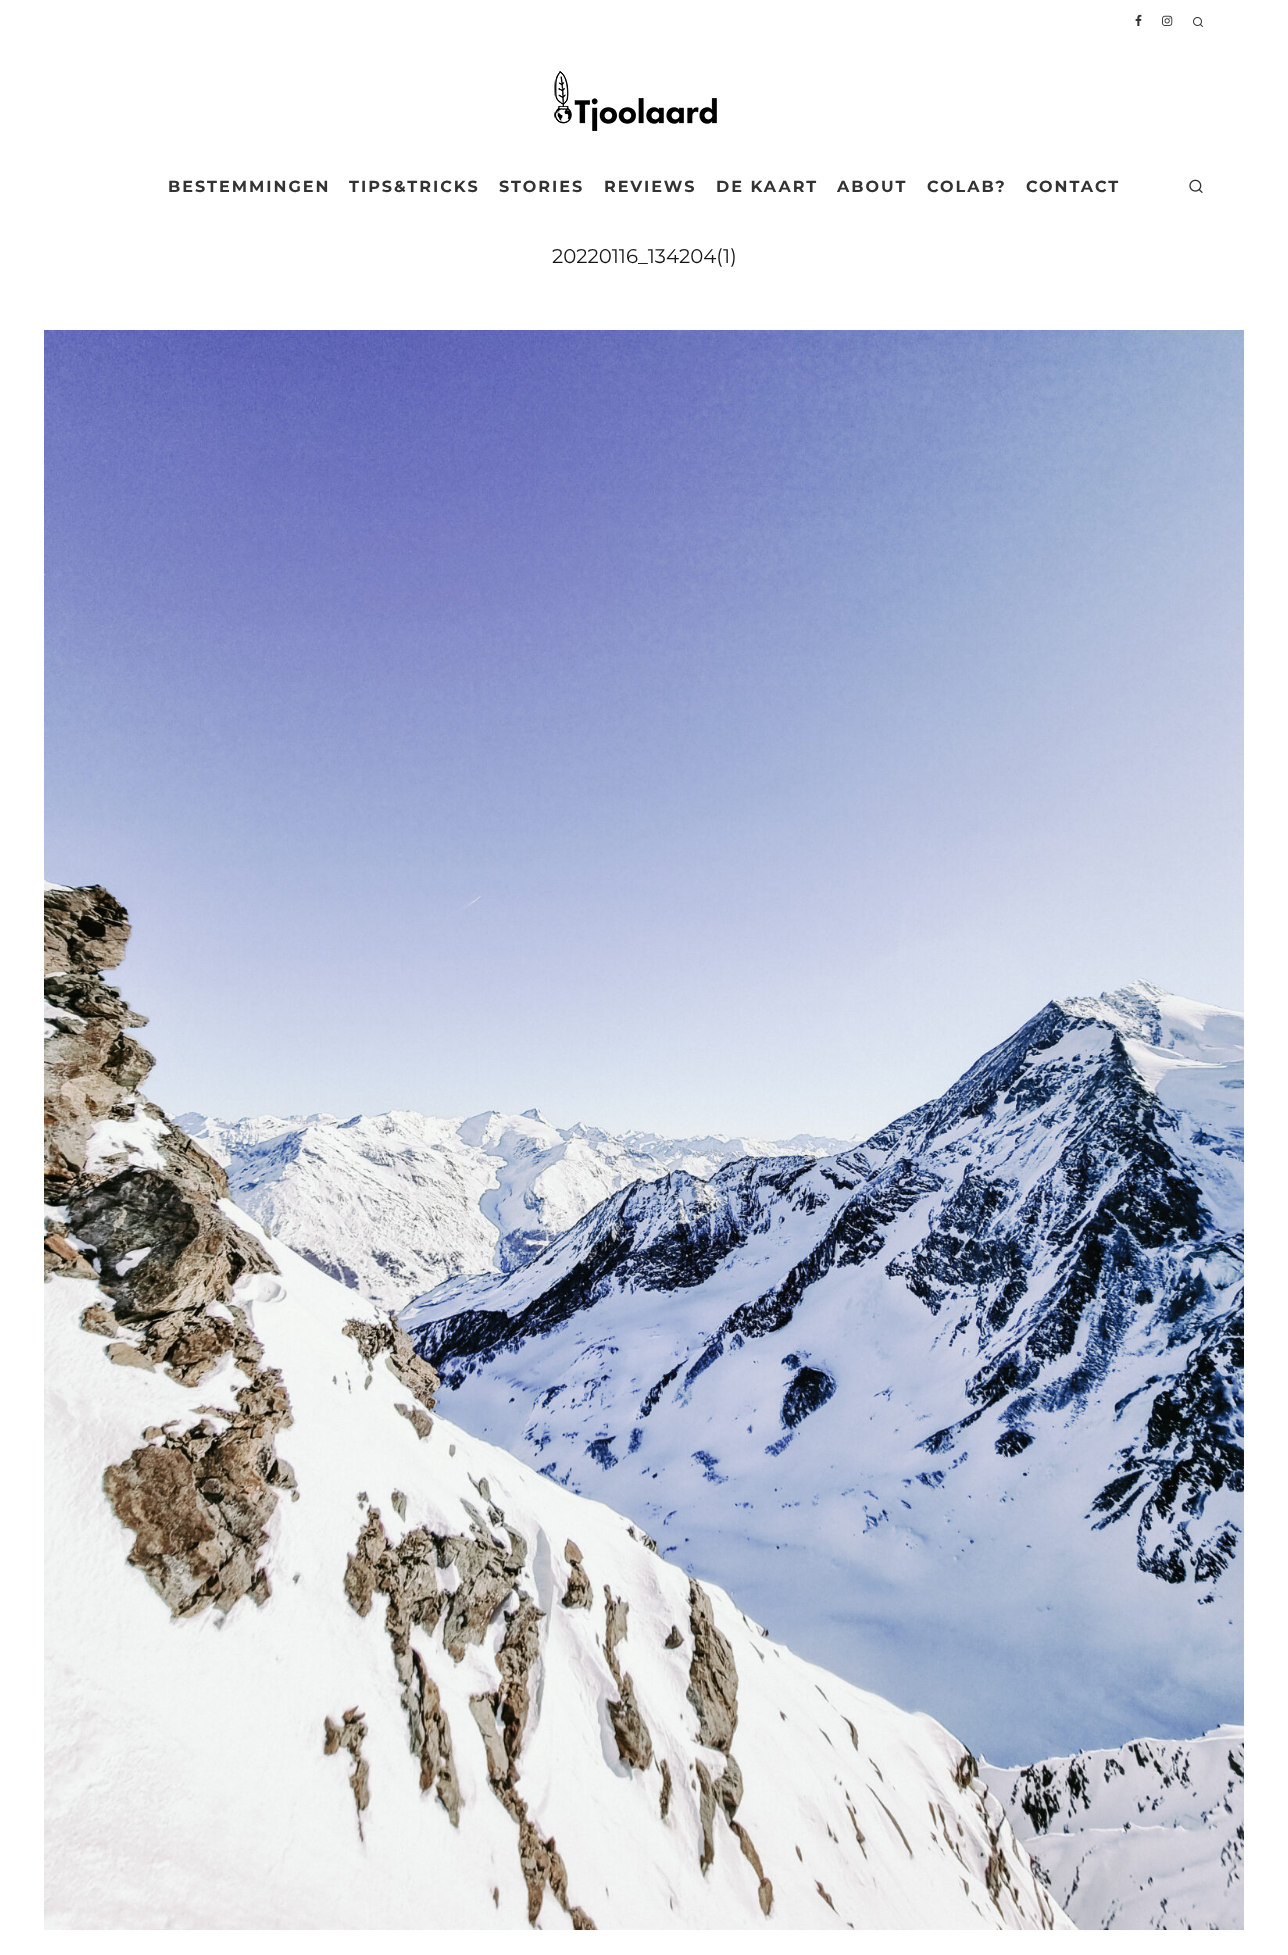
async function draw(canvas) {
  canvas.width = 1288;
  canvas.height = 1955;
  const ctx = canvas.getContext('2d');
  ctx.miterLimit = 4;
  ctx.fontKerning = 'normal';
  function label(s, x, y, font, color) {
    ctx.font = font;
    ctx.fillStyle = color;
    ctx.fillText(s, x, y);
  }
  function rect(x, y, w, h, color) {
    ctx.fillStyle = color;
    ctx.fillRect(x, y, w, h);
  }
  async function image(src, x, y, w, h) {
    const img = new Image();
    img.src = src;
    await img.decode();
    ctx.drawImage(img, x, y, w, h);
  }

  rect(0, 0, 1288, 1955, '#fff');
  await image('assets/img1.png', 1135, 14, 7, 12);
  await image('assets/img2.png', 1162, 15, 11, 11);
  await image('assets/img3.png', 1193, 17, 10, 10);
  await image('assets/img4.png', 554, 71, 163, 60);
  ctx.letterSpacing = '2px';
  label('BESTEMMINGEN', 168, 192, 'bold 16px Montserrat', '#333');
  label('TIPS&TRICKS', 349, 192, 'bold 16px Montserrat', '#333');
  label('STORIES', 499, 192, 'bold 16px Montserrat', '#333');
  label('REVIEWS', 604, 192, 'bold 16px Montserrat', '#333');
  label('DE KAART', 716, 192, 'bold 16px Montserrat', '#333');
  label('ABOUT', 837, 192, 'bold 16px Montserrat', '#333');
  label('COLAB?', 927, 192, 'bold 16px Montserrat', '#333');
  label('CONTACT', 1026, 192, 'bold 16px Montserrat', '#333');
  await image('assets/img5.png', 1189, 179, 14, 14);
  ctx.letterSpacing = '0px';
  label('20220116_134204(1)', 552, 263, '19.75px Montserrat', '#161616');
  await image('assets/img6.png', 44, 330, 1200, 1600);
}

draw(document.querySelector('canvas'));
